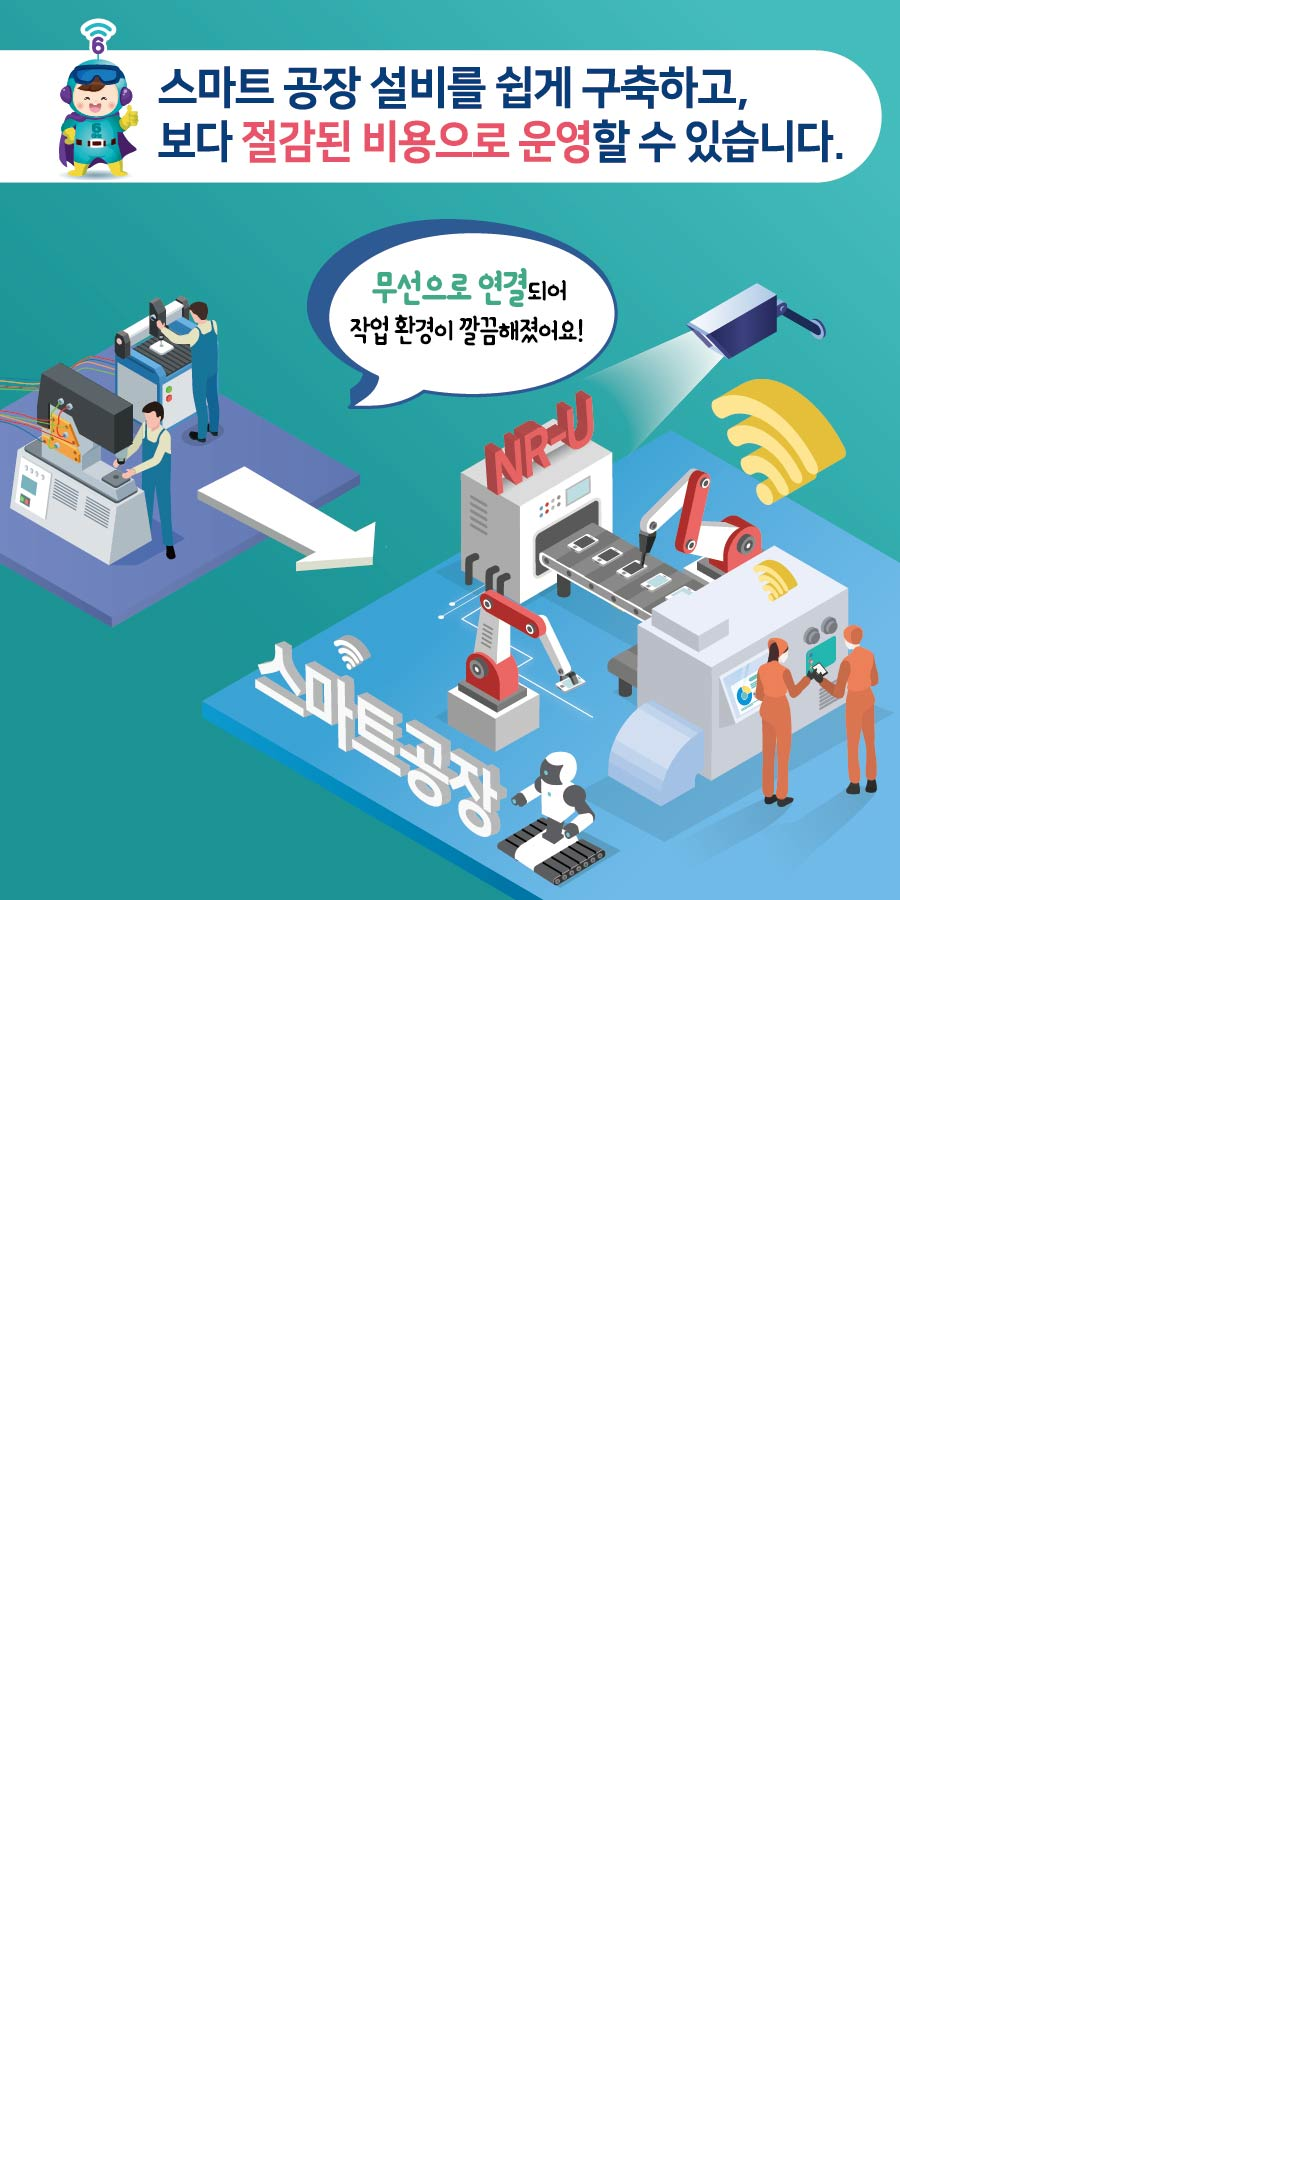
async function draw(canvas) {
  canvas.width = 1305;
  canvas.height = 2173;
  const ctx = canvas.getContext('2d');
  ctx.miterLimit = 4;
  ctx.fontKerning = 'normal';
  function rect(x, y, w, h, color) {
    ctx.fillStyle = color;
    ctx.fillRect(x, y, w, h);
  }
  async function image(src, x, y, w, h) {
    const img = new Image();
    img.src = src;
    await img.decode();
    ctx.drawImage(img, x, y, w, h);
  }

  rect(0, 0, 1305, 2173, '#fff');
  await image('assets/img1.png', 0, 0, 900, 900);
}

draw(document.querySelector('canvas'));
